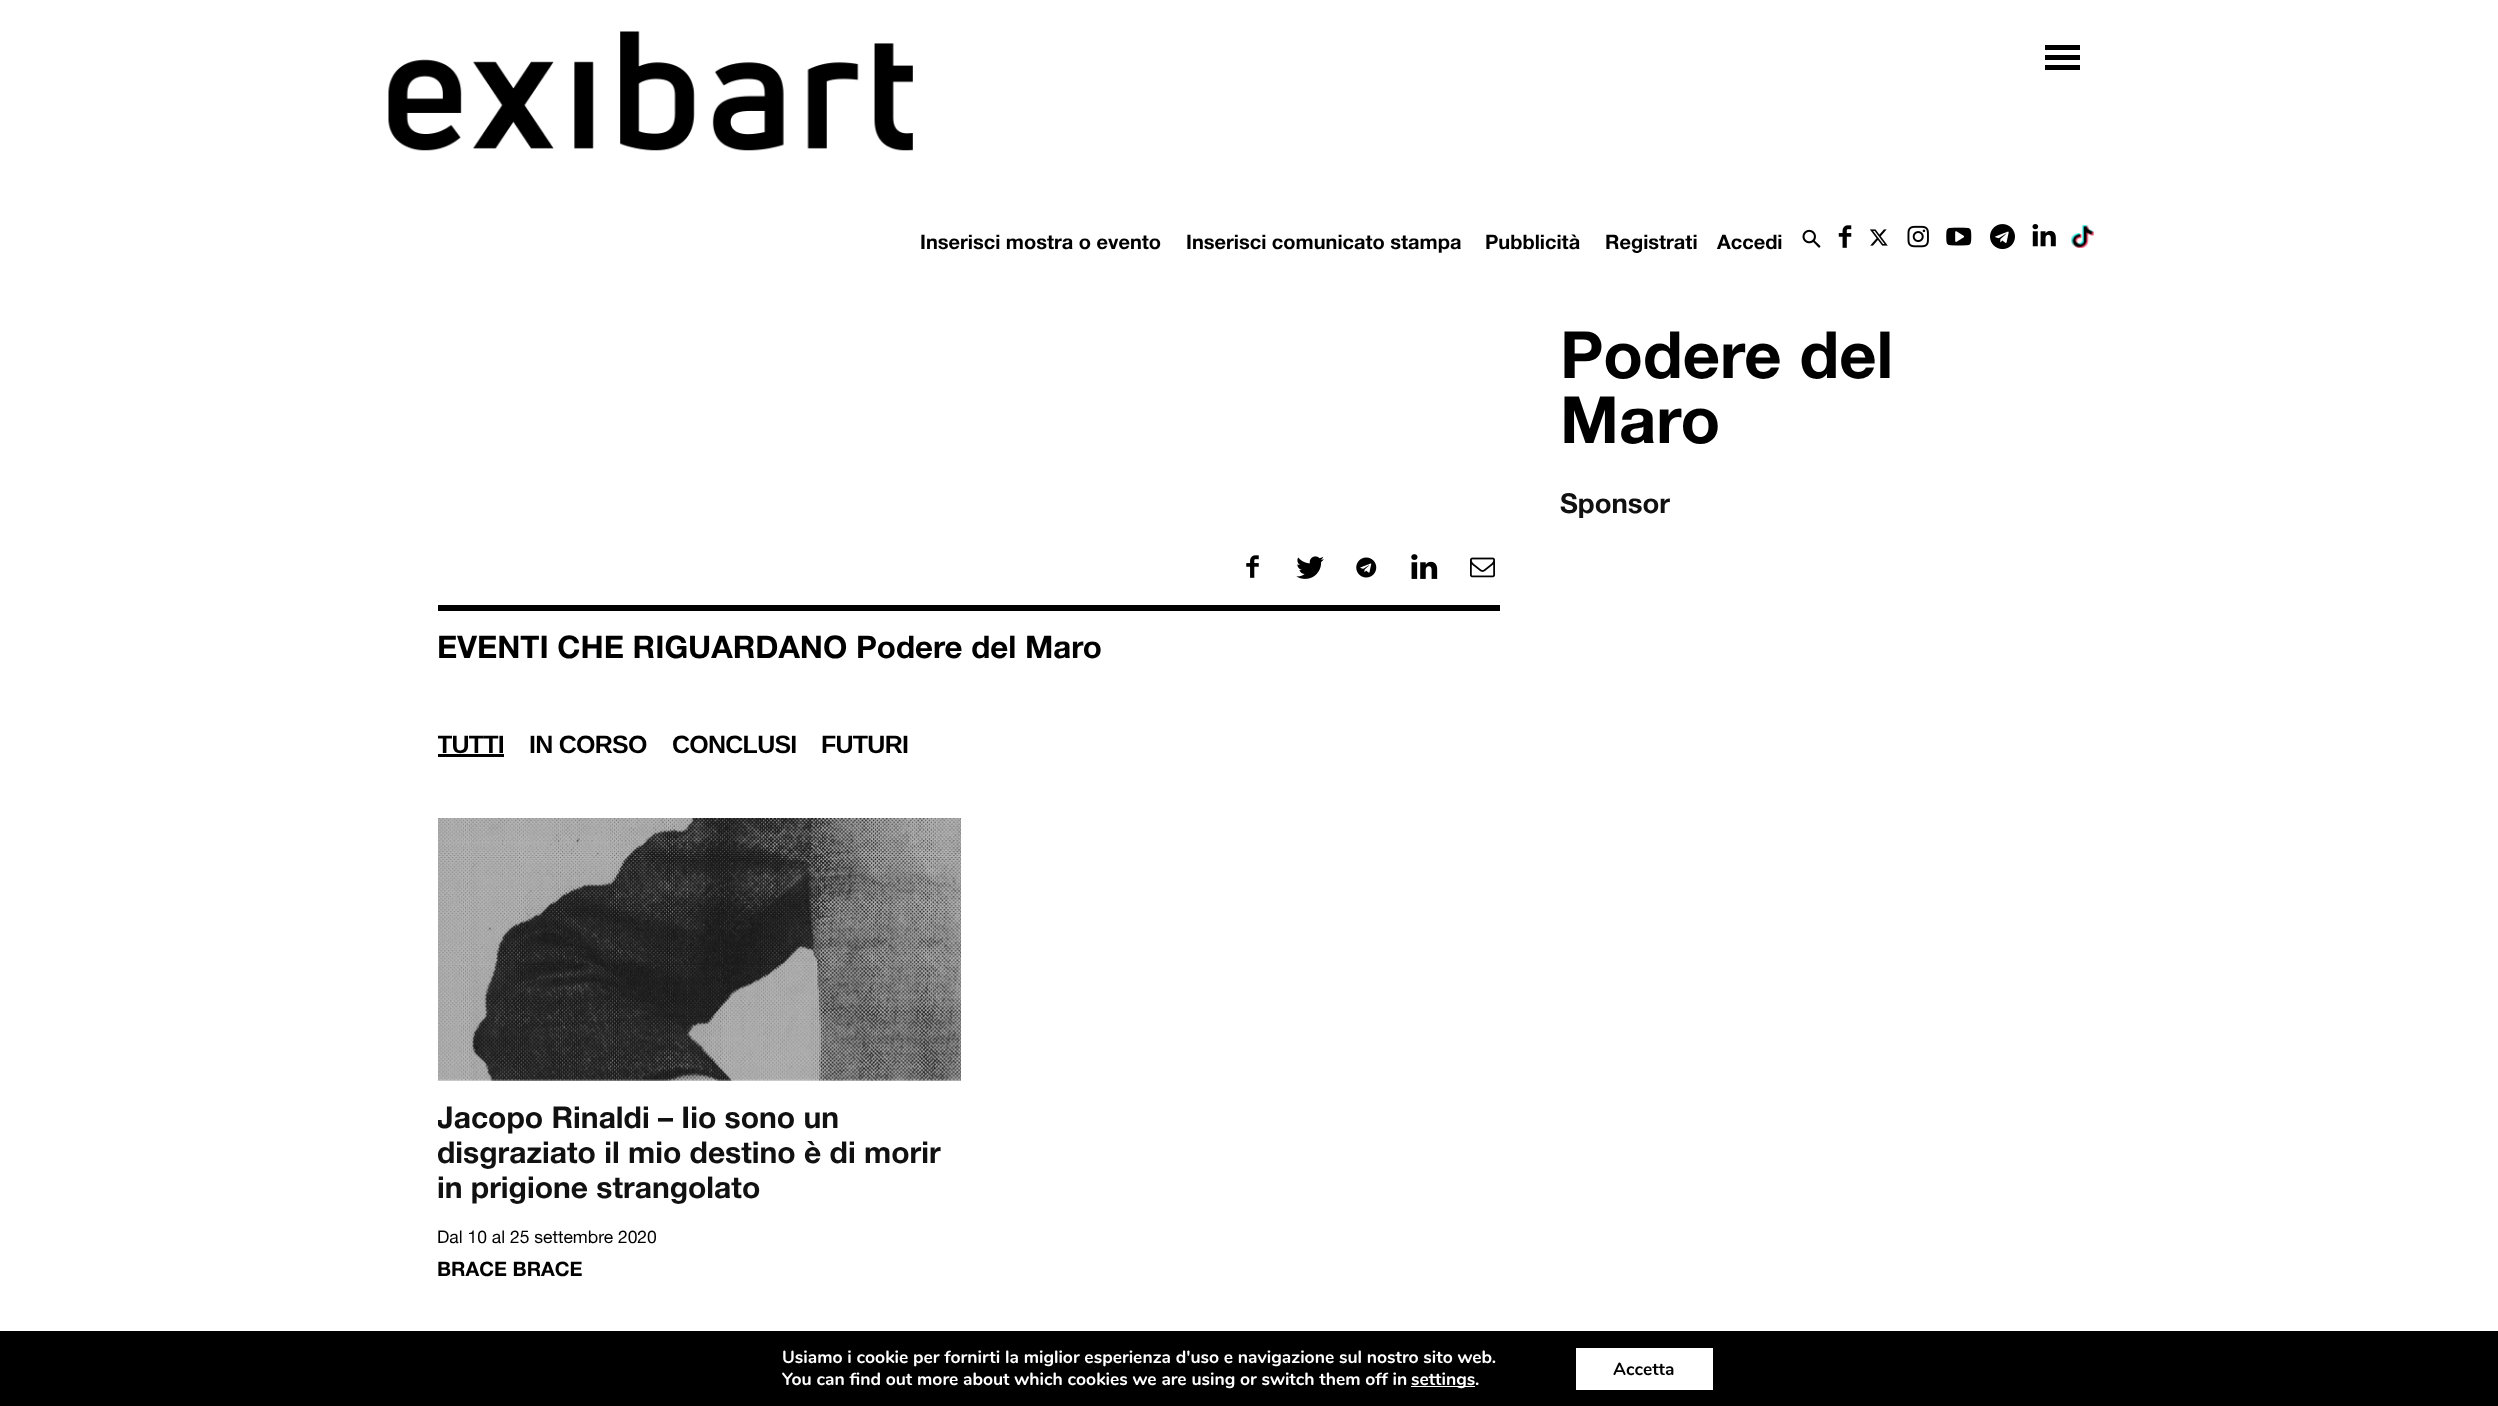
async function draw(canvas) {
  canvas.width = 2498;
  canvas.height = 1406;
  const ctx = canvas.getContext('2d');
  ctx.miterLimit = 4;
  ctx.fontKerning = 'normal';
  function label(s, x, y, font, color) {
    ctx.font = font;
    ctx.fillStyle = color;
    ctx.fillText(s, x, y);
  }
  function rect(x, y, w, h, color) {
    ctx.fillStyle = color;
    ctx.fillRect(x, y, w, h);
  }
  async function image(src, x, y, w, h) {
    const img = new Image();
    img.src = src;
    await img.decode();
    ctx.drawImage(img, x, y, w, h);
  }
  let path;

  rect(0, 0, 2498, 1406, '#fff');
  await image('assets/img1.png', 388, 31, 525, 120);
  ctx.fillStyle = '#000';
  path = new Path2D('M2080 50V45H2045V50ZM2080 60V55H2045V60ZM2080 70V65H2045V70Z');
  ctx.fill(path);
  label('Inserisci mostra o evento', 920, 249, 'bold 20px "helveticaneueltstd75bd"', '#000');
  label('Inserisci comunicato stampa', 1186, 249, 'bold 20px "helveticaneueltstd75bd"', '#000');
  label('Pubblicità', 1485, 249, 'bold 20px "helveticaneueltstd75bd"', '#000');
  label('Registrati', 1605, 249, 'bold 20px "helveticaneueltstd75bd"', '#000');
  label('Accedi', 1717, 249, 'bold 20px "helveticaneueltstd75bd"', '#000');
  await image('assets/img2.png', 1802, 229, 19, 19);
  await image('assets/img3.png', 1838, 225, 14, 23);
  await image('assets/img4.png', 1869, 229, 19, 17);
  await image('assets/img5.png', 1907, 225, 22, 23);
  await image('assets/img6.png', 1946, 227, 26, 19);
  await image('assets/img7.png', 1990, 224, 25, 26);
  await image('assets/img8.png', 2032, 224, 24, 23);
  await image('assets/img9.png', 2071, 225, 23, 23);
  label('Podere del', 1560, 378, 'bold 65px "helveticaneueltstd75bd"', '#000');
  label('Maro', 1560, 443, 'bold 65px "helveticaneueltstd75bd"', '#000');
  label('Sponsor', 1560, 513, 'bold 27.5px "helveticaneueltstd75bd"', '#111');
  await image('assets/img10.png', 1246, 555, 13, 23);
  await image('assets/img11.png', 1296, 556, 28, 23);
  await image('assets/img12.png', 1356, 557, 21, 21);
  await image('assets/img13.png', 1411, 554, 27, 25);
  await image('assets/img14.png', 1470, 557, 25, 21);
  rect(438, 605, 1062, 6, '#000');
  label('EVENTI CHE RIGUARDANO Podere del Maro', 437, 658, 'bold 31.25px "helveticaneueltstd75bd"', '#000');
  ctx.save();
  ctx.beginPath();
  ctx.rect(438, 725, 1625, 668);
  ctx.clip();
  ctx.letterSpacing = '-0.75px';
  label('TUTTI', 437, 753, 'bold 25px Liberation Sans', '#000');
  ctx.restore();
  rect(438, 754, 66, 3, '#000');
  ctx.letterSpacing = '-0.75px';
  label('IN CORSO', 529, 753, 'bold 25px Liberation Sans', '#000');
  label('CONCLUSI', 672, 753, 'bold 25px Liberation Sans', '#000');
  label('FUTURI', 821, 753, 'bold 25px Liberation Sans', '#000');
  await image('assets/img15.png', 438, 818, 523, 263);
  ctx.save();
  ctx.beginPath();
  ctx.rect(438, 725, 1625, 668);
  ctx.clip();
  ctx.letterSpacing = '0px';
  label('Jacopo Rinaldi – Iio sono un', 437, 1128, 'bold 30px "helveticaneueltstd75bd"', '#111');
  label('disgraziato il mio destino è di morir', 437, 1163, 'bold 30px "helveticaneueltstd75bd"', '#111');
  ctx.restore();
  ctx.letterSpacing = '0px';
  label('in prigione strangolato', 437, 1198, 'bold 30px "helveticaneueltstd75bd"', '#111');
  label('Dal 10 al 25 settembre 2020', 437, 1243, '17.5px "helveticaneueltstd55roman"', '#000');
  label('BRACE BRACE', 437, 1276, 'bold 20px "helveticaneueltstd75bd"', '#000');
  rect(0, 1331, 2498, 75, '#000');
  label('Usiamo i cookie per fornirti la miglior esperienza d\'uso e navigazione sul nostro sito web.', 782, 1363, 'bold 17.5px Nunito', '#fff');
  label('You can find out more about which cookies we are using or switch them off in', 782, 1385, 'bold 17.5px Nunito', '#fff');
  rect(1411, 1386, 64, 1, '#fff');
  label('settings.', 1411, 1385, 'bold 17.5px Nunito', '#fff');
  rect(1576, 1348, 137, 42, '#fff');
  label('Accetta', 1613, 1375, 'bold 17.5px Nunito', '#000');
}

draw(document.querySelector('canvas'));
